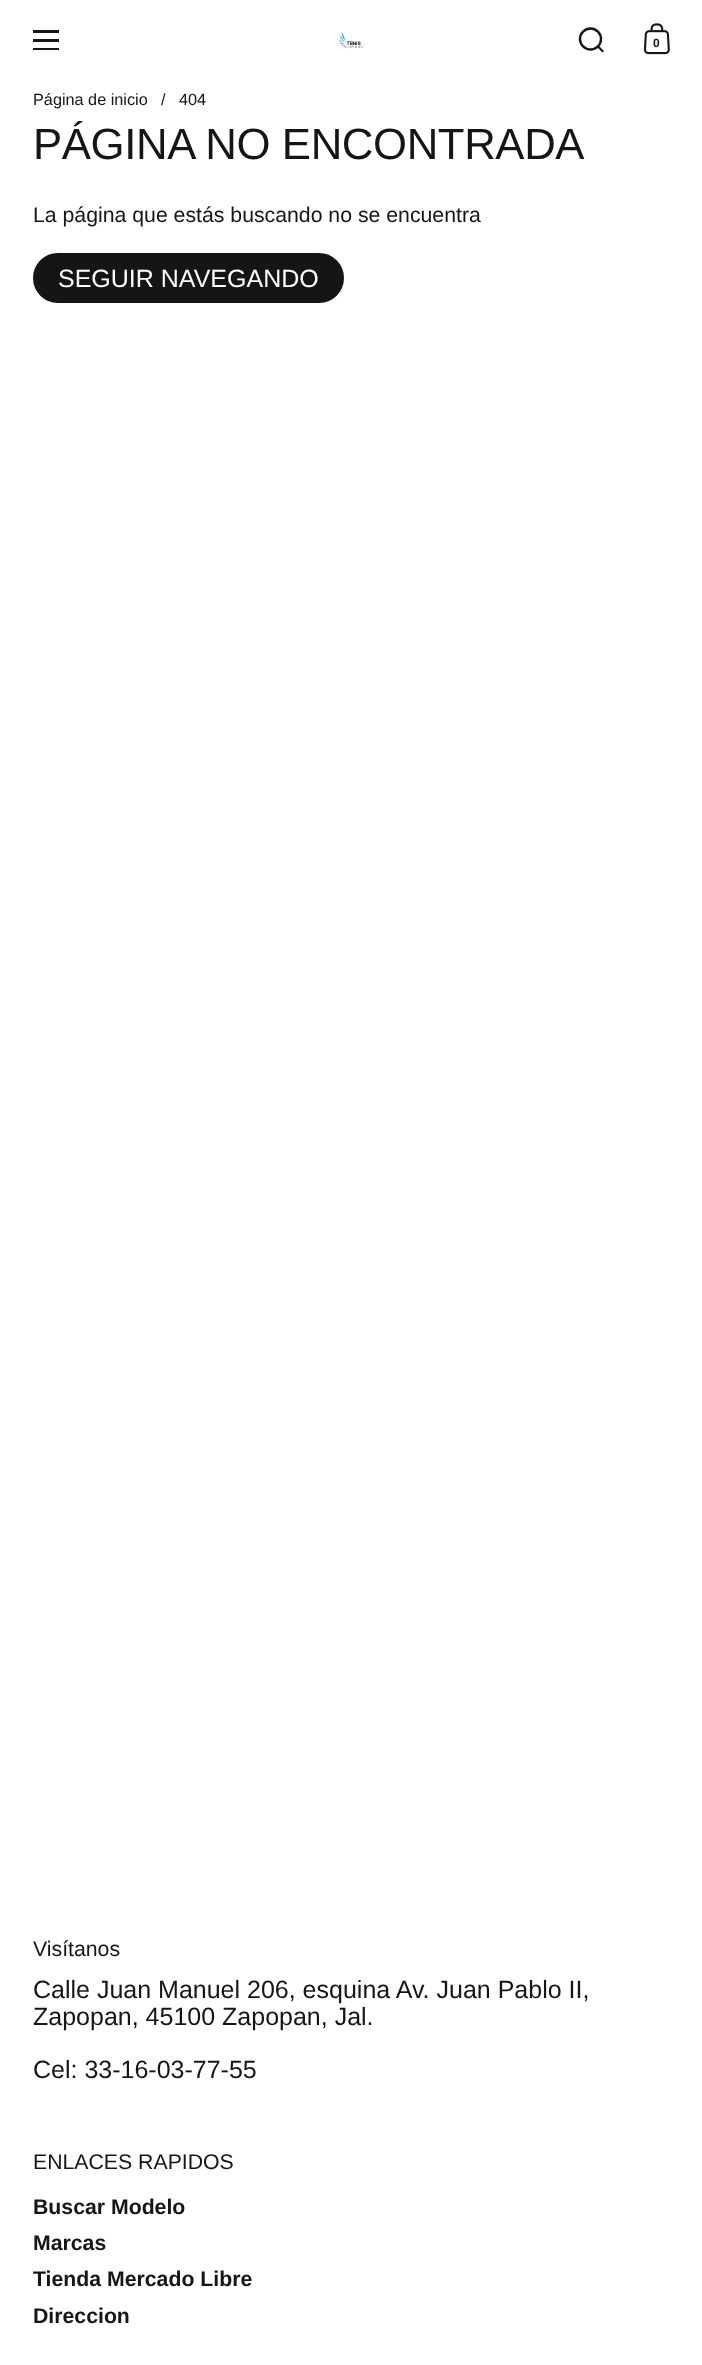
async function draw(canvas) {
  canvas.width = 702;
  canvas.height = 2365;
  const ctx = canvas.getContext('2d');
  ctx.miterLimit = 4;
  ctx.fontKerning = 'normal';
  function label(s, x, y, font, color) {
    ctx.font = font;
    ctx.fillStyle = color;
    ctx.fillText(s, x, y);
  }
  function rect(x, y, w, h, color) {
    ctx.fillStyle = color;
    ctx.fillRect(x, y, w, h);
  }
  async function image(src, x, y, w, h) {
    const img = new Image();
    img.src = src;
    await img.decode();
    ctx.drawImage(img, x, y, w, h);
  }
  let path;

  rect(0, 0, 702, 2365, '#fff');
  rect(33, 30, 26, 3, '#151515');
  rect(33, 39, 26, 3, '#151515');
  rect(33, 48, 26, 2, '#151515');
  await image('assets/img1.png', 339, 32, 24, 17);
  ctx.beginPath();
  ctx.arc(590.5, 39, 10.5, 0, 2 * Math.PI);
  ctx.strokeStyle = '#151515';
  ctx.lineWidth = 2.4;
  ctx.stroke();
  path = new Path2D('M597 47L598.5 45.5L604 51L602.5 52.5Z');
  ctx.fill(path);
  await image('assets/img2.png', 644, 23, 26, 32);
  label('0', 653, 47, 'bold 12px Liberation Sans', '#151515');
  label('Página de inicio', 33, 105, '16.25px Liberation Sans', '#151515');
  label('/', 161, 105, '16.25px Liberation Sans', '#151515');
  label('404', 179, 105, '16.25px Liberation Sans', '#151515');
  ctx.letterSpacing = '-0.4px';
  label('PÁGINA NO ENCONTRADA', 33, 159, '43.75px Liberation Sans', '#151515');
  ctx.letterSpacing = '0px';
  label('La página que estás buscando no se encuentra', 33, 222, '21.25px Liberation Sans', '#151515');
  ctx.beginPath();
  ctx.roundRect(34.5, 254.5, 308, 47, 23.5);
  ctx.fill();
  ctx.lineWidth = 3;
  ctx.stroke();
  label('SEGUIR NAVEGANDO', 58, 287, '25px Liberation Sans', '#fff');
  label('Visítanos', 33, 1956, '21.25px Liberation Sans', '#151515');
  label('Calle Juan Manuel 206, esquina Av. Juan Pablo II,', 33, 1998, '25px Liberation Sans', '#151515');
  label('Zapopan, 45100 Zapopan, Jal.', 33, 2025, '25px Liberation Sans', '#151515');
  label('Cel: 33-16-03-77-55', 33, 2078, '25px Liberation Sans', '#151515');
  label('ENLACES RAPIDOS', 33, 2169, '21.25px Liberation Sans', '#151515');
  label('Buscar Modelo', 33, 2214, 'bold 21.25px Liberation Sans', '#151515');
  label('Marcas', 33, 2250, 'bold 21.25px Liberation Sans', '#151515');
  label('Tienda Mercado Libre', 33, 2286, 'bold 21.25px Liberation Sans', '#151515');
  label('Direccion', 33, 2323, 'bold 21.25px Liberation Sans', '#151515');
}

draw(document.querySelector('canvas'));
